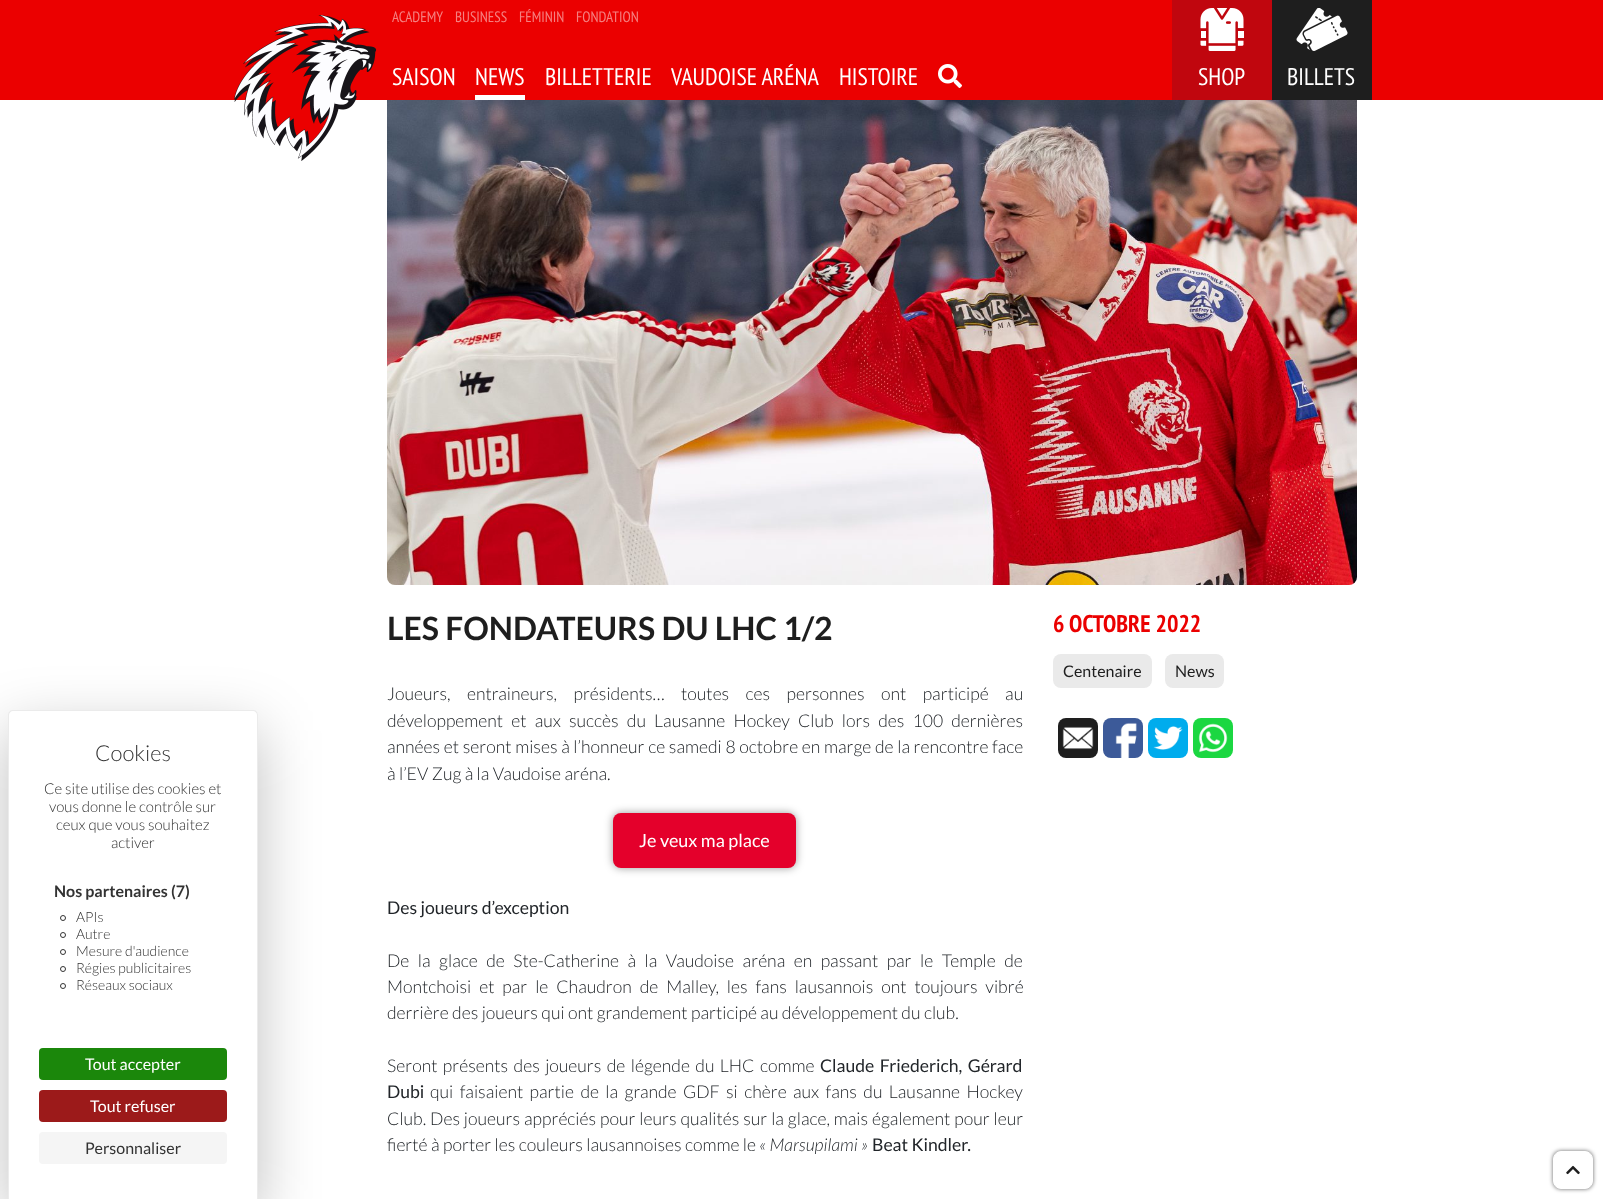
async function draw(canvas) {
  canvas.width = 1603;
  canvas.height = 1199;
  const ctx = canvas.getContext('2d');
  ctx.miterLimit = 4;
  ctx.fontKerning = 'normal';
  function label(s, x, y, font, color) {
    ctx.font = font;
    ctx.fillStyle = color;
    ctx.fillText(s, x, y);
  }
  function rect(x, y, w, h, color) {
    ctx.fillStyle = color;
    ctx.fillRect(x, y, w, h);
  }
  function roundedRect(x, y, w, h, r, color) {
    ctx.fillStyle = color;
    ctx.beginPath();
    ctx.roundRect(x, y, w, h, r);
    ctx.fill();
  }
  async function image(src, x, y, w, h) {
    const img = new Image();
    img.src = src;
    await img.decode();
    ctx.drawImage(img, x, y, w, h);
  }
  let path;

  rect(0, 0, 1603, 1199, '#fff');
  ctx.fillStyle = '#00000040';
  ctx.filter = 'blur(30px)';
  ctx.beginPath();
  ctx.roundRect(8, 730, 250, 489, 5);
  ctx.fill();
  ctx.filter = 'none';
  ctx.fillStyle = '#fff';
  ctx.beginPath();
  ctx.roundRect(8, 710, 250, 489, [5, 5, 0, 0]);
  ctx.fill();
  ctx.fillStyle = '#ebebeb';
  path = new Path2D('M13 710H253C256 710 258 712 258 715V1199H8V715C8 712 10 710 13 710ZM13 711H253C255 711 257 713 257 715V1199H9V715C9 713 11 711 13 711Z');
  ctx.fill(path, 'evenodd');
  label('Cookies', 95, 761, '300 22px Lato', '#333');
  label('Ce site utilise des cookies et', 44, 794, '300 15px Lato', '#333');
  label('vous donne le contrôle sur', 49, 812, '300 15px Lato', '#333');
  label('ceux que vous souhaitez', 56, 830, '300 15px Lato', '#333');
  label('activer', 111, 848, '300 15px Lato', '#333');
  label('Nos partenaires (7)', 54, 897, 'bold 16px Lato', '#333');
  ctx.beginPath();
  ctx.arc(63, 918, 2.5, 0, 2 * Math.PI);
  ctx.strokeStyle = '#333';
  ctx.stroke();
  label('APIs', 76, 922, '300 14px Lato', '#333');
  ctx.beginPath();
  ctx.arc(63, 935, 2.5, 0, 2 * Math.PI);
  ctx.stroke();
  label('Autre', 76, 939, '300 14px Lato', '#333');
  ctx.beginPath();
  ctx.arc(63, 952, 2.5, 0, 2 * Math.PI);
  ctx.stroke();
  label('Mesure d\'audience', 76, 956, '300 14px Lato', '#333');
  ctx.beginPath();
  ctx.arc(63, 969, 2.5, 0, 2 * Math.PI);
  ctx.stroke();
  label('Régies publicitaires', 76, 973, '300 14px Lato', '#333');
  ctx.beginPath();
  ctx.arc(63, 986, 2.5, 0, 2 * Math.PI);
  ctx.stroke();
  label('Réseaux sociaux', 76, 990, '300 14px Lato', '#333');
  roundedRect(39, 1048, 188, 32, 4, '#1b870b');
  label('Tout accepter', 85, 1070, '16px Lato', '#fff');
  roundedRect(39, 1090, 188, 32, 4, '#9c1a1a');
  label('Tout refuser', 90, 1112, '16px Lato', '#fff');
  roundedRect(39, 1132, 188, 32, 4, '#f5f5f5');
  label('Personnaliser', 85, 1154, '16px Lato', '#333');
  rect(0, 0, 1603, 100, '#eb0000');
  await image('assets/img1.png', 234, 15, 143, 146);
  label('ACADEMY', 392, 22, '15px PT Sans Narrow', '#f58080');
  label('BUSINESS', 455, 22, '15px PT Sans Narrow', '#f58080');
  label('FÉMININ', 519, 22, '15px PT Sans Narrow', '#f58080');
  label('FONDATION', 576, 22, '15px PT Sans Narrow', '#f58080');
  label('SAISON', 392, 85, '24px PT Sans Narrow', '#fff');
  rect(475, 95, 50, 5, '#fff');
  label('NEWS', 475, 85, '24px PT Sans Narrow', '#fff');
  label('BILLETTERIE', 545, 85, '24px PT Sans Narrow', '#fff');
  label('VAUDOISE ARÉNA', 671, 85, '24px PT Sans Narrow', '#fff');
  label('HISTOIRE', 839, 85, '24px PT Sans Narrow', '#fff');
  await image('assets/img2.png', 938, 64, 24, 24);
  rect(1172, 0, 100, 100, '#c0060e');
  await image('assets/img3.png', 1200, 8, 44, 43);
  label('SHOP', 1198, 85, '24px PT Sans Narrow', '#fff');
  rect(1272, 0, 100, 100, '#1e1e1e');
  await image('assets/img4.png', 1296, 8, 52, 43);
  label('BILLETS', 1287, 85, '24px PT Sans Narrow', '#fff');
  await image('assets/img5.png', 387, 100, 970, 485);
  label('LES FONDATEURS DU LHC 1/2', 387, 640, 'bold 32px Lato', '#1e1e1e');
  ctx.wordSpacing = '13px';
  label('Joueurs, entraineurs, présidents… toutes ces personnes ont participé au', 387, 700, '300 17.6px Lato', '#212529');
  ctx.wordSpacing = '4.75px';
  label('développement et aux succès du Lausanne Hockey Club lors des 100 dernières', 387, 727, '300 17.6px Lato', '#212529');
  ctx.wordSpacing = '0.25px';
  label('années et seront mises à l’honneur ce samedi 8 octobre en marge de la rencontre face', 387, 753, '300 17.6px Lato', '#212529');
  ctx.wordSpacing = '0px';
  label('à l’EV Zug à la Vaudoise aréna.', 387, 780, '300 17.6px Lato', '#212529');
  ctx.fillStyle = '#00000066';
  ctx.filter = 'blur(4px)';
  ctx.beginPath();
  ctx.roundRect(613, 813, 183, 55, 8);
  ctx.fill();
  ctx.filter = 'none';
  roundedRect(613, 813, 183, 55, 8, '#e4002b');
  label('Je veux ma place', 639, 847, '18px Lato', '#fff');
  label('Des joueurs d’exception', 387, 914, '17.6px Lato', '#212529');
  ctx.wordSpacing = '5.1px';
  label('De la glace de Ste-Catherine à la Vaudoise aréna en passant par le Temple de', 387, 967, '300 17.6px Lato', '#212529');
  ctx.wordSpacing = '4.5px';
  label('Montchoisi et par le Chaudron de Malley, les fans lausannois ont toujours vibré', 387, 993, '300 17.6px Lato', '#212529');
  ctx.wordSpacing = '0px';
  label('derrière des joueurs qui ont grandement participé au développement du club.', 387, 1019, '300 17.6px Lato', '#212529');
  ctx.wordSpacing = '2px';
  label('Seront présents des joueurs de légende du LHC comme', 387, 1072, '300 17.6px Lato', '#212529');
  label('Claude Friederich, Gérard', 820, 1072, '17.6px Lato', '#212529');
  ctx.wordSpacing = '0px';
  label('Dubi', 387, 1098, '17.6px Lato', '#212529');
  ctx.wordSpacing = '3px';
  label('qui faisaient partie de la grande GDF si chère aux fans du Lausanne Hockey', 430, 1098, '300 17.6px Lato', '#212529');
  ctx.wordSpacing = '0.5px';
  label('Club. Des joueurs appréciés pour leurs qualités sur la glace, mais également pour leur', 387, 1125, '300 17.6px Lato', '#212529');
  ctx.wordSpacing = '0px';
  label('fierté à porter les couleurs lausannoises comme le', 387, 1151, '300 17.6px Lato', '#212529');
  label('« Marsupilami »', 759, 1151, 'italic 300 17.6px Lato', '#212529');
  label('Beat Kindler.', 872, 1151, '17.6px Lato', '#212529');
  label('6 OCTOBRE 2022', 1053, 632, 'bold 24px PT Sans Narrow', '#eb0000');
  roundedRect(1053, 654, 99, 34, 8, '#eaeaea');
  label('Centenaire', 1063, 677, '16px Lato', '#1e1e1e');
  roundedRect(1165, 654, 59, 34, 8, '#eaeaea');
  label('News', 1175, 677, '16px Lato', '#1e1e1e');
  await image('assets/img6.png', 1058, 718, 40, 40);
  await image('assets/img7.png', 1103, 718, 40, 40);
  await image('assets/img8.png', 1148, 718, 40, 40);
  await image('assets/img9.png', 1193, 718, 40, 40);
  ctx.fillStyle = '#00000099';
  ctx.filter = 'blur(2px)';
  ctx.beginPath();
  ctx.roundRect(1553, 1151, 40, 38, 8);
  ctx.fill();
  ctx.filter = 'none';
  ctx.fillStyle = '#fff';
  ctx.beginPath();
  ctx.roundRect(1553.5, 1151.5, 39, 37, 7.5);
  ctx.fill();
  ctx.strokeStyle = '#fff';
  ctx.stroke();
  await image('assets/img10.png', 1566, 1165, 14, 10);
}

draw(document.querySelector('canvas'));
